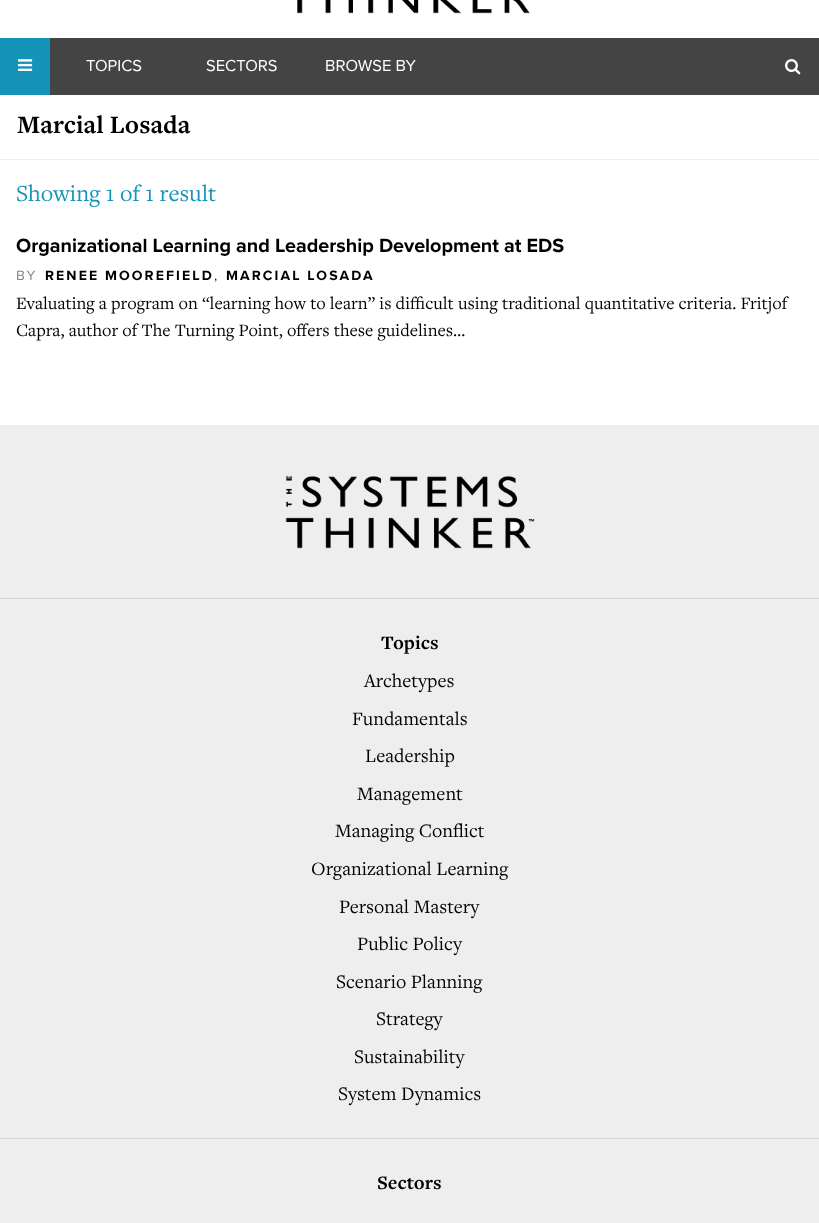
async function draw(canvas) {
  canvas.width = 819;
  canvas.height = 1223;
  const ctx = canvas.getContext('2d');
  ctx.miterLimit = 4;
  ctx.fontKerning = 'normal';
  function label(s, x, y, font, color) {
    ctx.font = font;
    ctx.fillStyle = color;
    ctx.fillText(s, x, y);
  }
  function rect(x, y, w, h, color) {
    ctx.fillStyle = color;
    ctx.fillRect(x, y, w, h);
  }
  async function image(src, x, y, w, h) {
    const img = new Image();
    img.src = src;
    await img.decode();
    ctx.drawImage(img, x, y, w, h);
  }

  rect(0, 0, 819, 1223, '#fff');
  await image('assets/img1.png', 297, 0, 233, 14);
  rect(50, 38, 769, 57, '#444');
  rect(0, 38, 50, 57, '#1593b8');
  await image('assets/img2.png', 18, 59, 15, 12);
  label('TOPICS', 86, 71, '16.5px Proxima Nova', '#fff');
  label('SECTORS', 206, 71, '16.5px Proxima Nova', '#fff');
  label('BROWSE BY', 325, 71, '16.5px Proxima Nova', '#fff');
  await image('assets/img3.png', 785, 59, 16, 16);
  rect(0, 159, 819, 1, '#eee');
  label('Marcial Losada', 17, 133, 'bold 26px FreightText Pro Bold', '#000');
  label('Showing 1 of 1 result', 16, 201, '24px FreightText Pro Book', '#1593b8');
  label('Organizational Learning and Leadership Development at EDS', 16, 252, 'bold 19.8px Proxima Nova', '#000');
  ctx.letterSpacing = '2.1px';
  label('BY', 16, 280, '14px Proxima Nova', '#858585');
  label('RENEE MOOREFIELD', 45, 280, 'bold 14px Proxima Nova', '#000');
  label(',', 214, 280, '14px Proxima Nova', '#333');
  label('MARCIAL LOSADA', 226, 280, 'bold 14px Proxima Nova', '#000');
  ctx.letterSpacing = '0px';
  label('Evaluating a program on “learning how to learn” is difficult using traditional quantitative criteria. Fritjof', 16, 309, '18.15px FreightText Pro Book', '#000');
  label('Capra, author of The Turning Point, offers these guidelines…', 16, 336, '18.15px FreightText Pro Book', '#000');
  rect(0, 425, 819, 798, '#eee');
  rect(0, 598, 819, 1, '#d6d6d6');
  await image('assets/img4.png', 285, 475, 250, 74);
  rect(0, 1138, 819, 1, '#d6d6d6');
  label('Topics', 381, 649, 'bold 19.8px FreightText Pro Bold', '#000');
  label('Archetypes', 364, 687, '19.8px FreightText Pro Book', '#000');
  label('Fundamentals', 352, 725, '19.8px FreightText Pro Book', '#000');
  label('Leadership', 365, 762, '19.8px FreightText Pro Book', '#000');
  label('Management', 357, 800, '19.8px FreightText Pro Book', '#000');
  label('Managing Conflict', 335, 837, '19.8px FreightText Pro Book', '#000');
  label('Organizational Learning', 311, 875, '19.8px FreightText Pro Book', '#000');
  label('Personal Mastery', 339, 913, '19.8px FreightText Pro Book', '#000');
  label('Public Policy', 357, 950, '19.8px FreightText Pro Book', '#000');
  label('Scenario Planning', 336, 988, '19.8px FreightText Pro Book', '#000');
  label('Strategy', 376, 1025, '19.8px FreightText Pro Book', '#000');
  label('Sustainability', 354, 1063, '19.8px FreightText Pro Book', '#000');
  label('System Dynamics', 338, 1100, '19.8px FreightText Pro Book', '#000');
  label('Sectors', 377, 1189, 'bold 19.8px FreightText Pro Bold', '#000');
}

draw(document.querySelector('canvas'));
